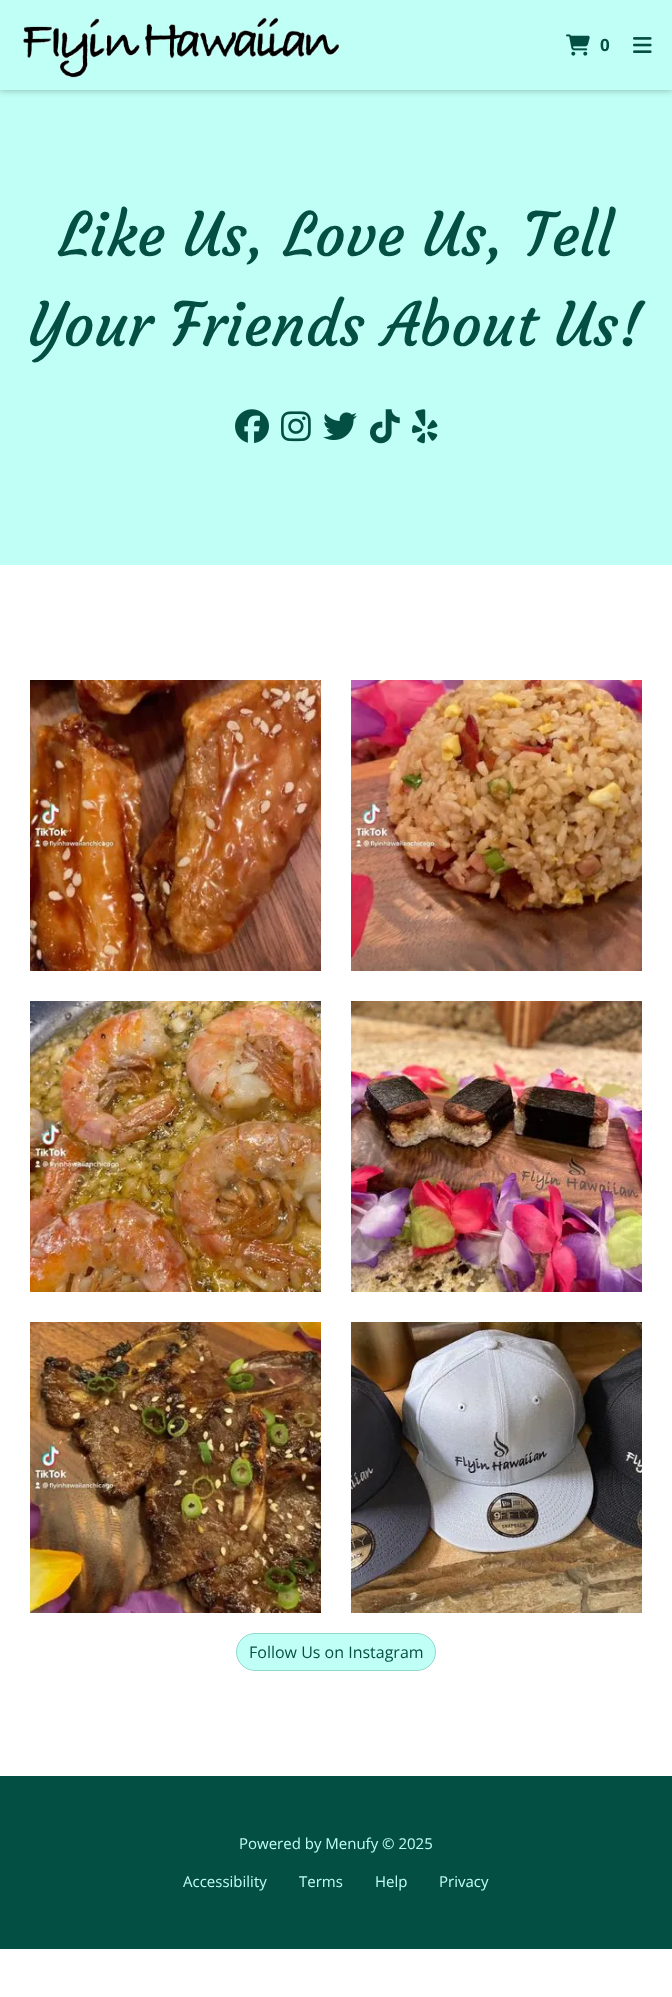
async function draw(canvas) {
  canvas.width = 672;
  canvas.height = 1997;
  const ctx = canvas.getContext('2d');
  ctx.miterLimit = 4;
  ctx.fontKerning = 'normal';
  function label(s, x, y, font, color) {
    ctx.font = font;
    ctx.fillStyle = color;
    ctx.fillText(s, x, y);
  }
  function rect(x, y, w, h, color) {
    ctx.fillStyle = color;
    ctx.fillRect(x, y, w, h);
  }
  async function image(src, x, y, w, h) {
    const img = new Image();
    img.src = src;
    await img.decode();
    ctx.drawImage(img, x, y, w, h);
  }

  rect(0, 0, 672, 1997, '#fff');
  rect(0, 90, 672, 475, '#c0fff5');
  ctx.fillStyle = '#20212447';
  ctx.filter = 'blur(3px)';
  ctx.beginPath();
  ctx.rect(0, 1, 672, 90);
  ctx.fill();
  ctx.filter = 'none';
  rect(0, 0, 672, 90, '#c0fff5');
  await image('assets/img1.png', 23, 17, 317, 61);
  await image('assets/img2.png', 566, 34, 24, 22);
  label('0', 600, 51, 'bold 17px Open Sans', '#044f44');
  await image('assets/img3.png', 633, 37, 19, 16);
  label('Like Us, Love Us, Tell', 59, 256, '60px Courgette', '#044f44');
  label('Your Friends About Us!', 29, 346, '60px Courgette', '#044f44');
  await image('assets/img4.png', 235, 409, 34, 35);
  await image('assets/img5.png', 281, 411, 30, 31);
  await image('assets/img6.png', 323, 412, 34, 29);
  await image('assets/img7.png', 370, 409, 30, 35);
  await image('assets/img8.png', 412, 409, 26, 35);
  await image('assets/img9.png', 30, 680, 291, 291);
  await image('assets/img10.png', 351, 680, 291, 291);
  await image('assets/img11.png', 30, 1001, 291, 291);
  await image('assets/img12.png', 351, 1001, 291, 291);
  await image('assets/img13.png', 30, 1322, 291, 291);
  await image('assets/img14.png', 351, 1322, 291, 291);
  ctx.fillStyle = '#c0fff5';
  ctx.beginPath();
  ctx.roundRect(236.5, 1633.5, 199, 37, 18.5);
  ctx.fill();
  ctx.strokeStyle = '#93d9ce';
  ctx.stroke();
  label('Follow Us on Instagram', 249, 1658, '16px Open Sans', '#044f44');
  rect(0, 1776, 672, 173, '#044f44');
  label('Powered by Menufy © 2025', 239, 1849, '15px Open Sans', '#c0fff5');
  label('Accessibility', 183, 1887, '15px Open Sans', '#c0fff5');
  label('Terms', 299, 1887, '15px Open Sans', '#c0fff5');
  label('Help', 375, 1887, '15px Open Sans', '#c0fff5');
  label('Privacy', 439, 1887, '15px Open Sans', '#c0fff5');
}

draw(document.querySelector('canvas'));
